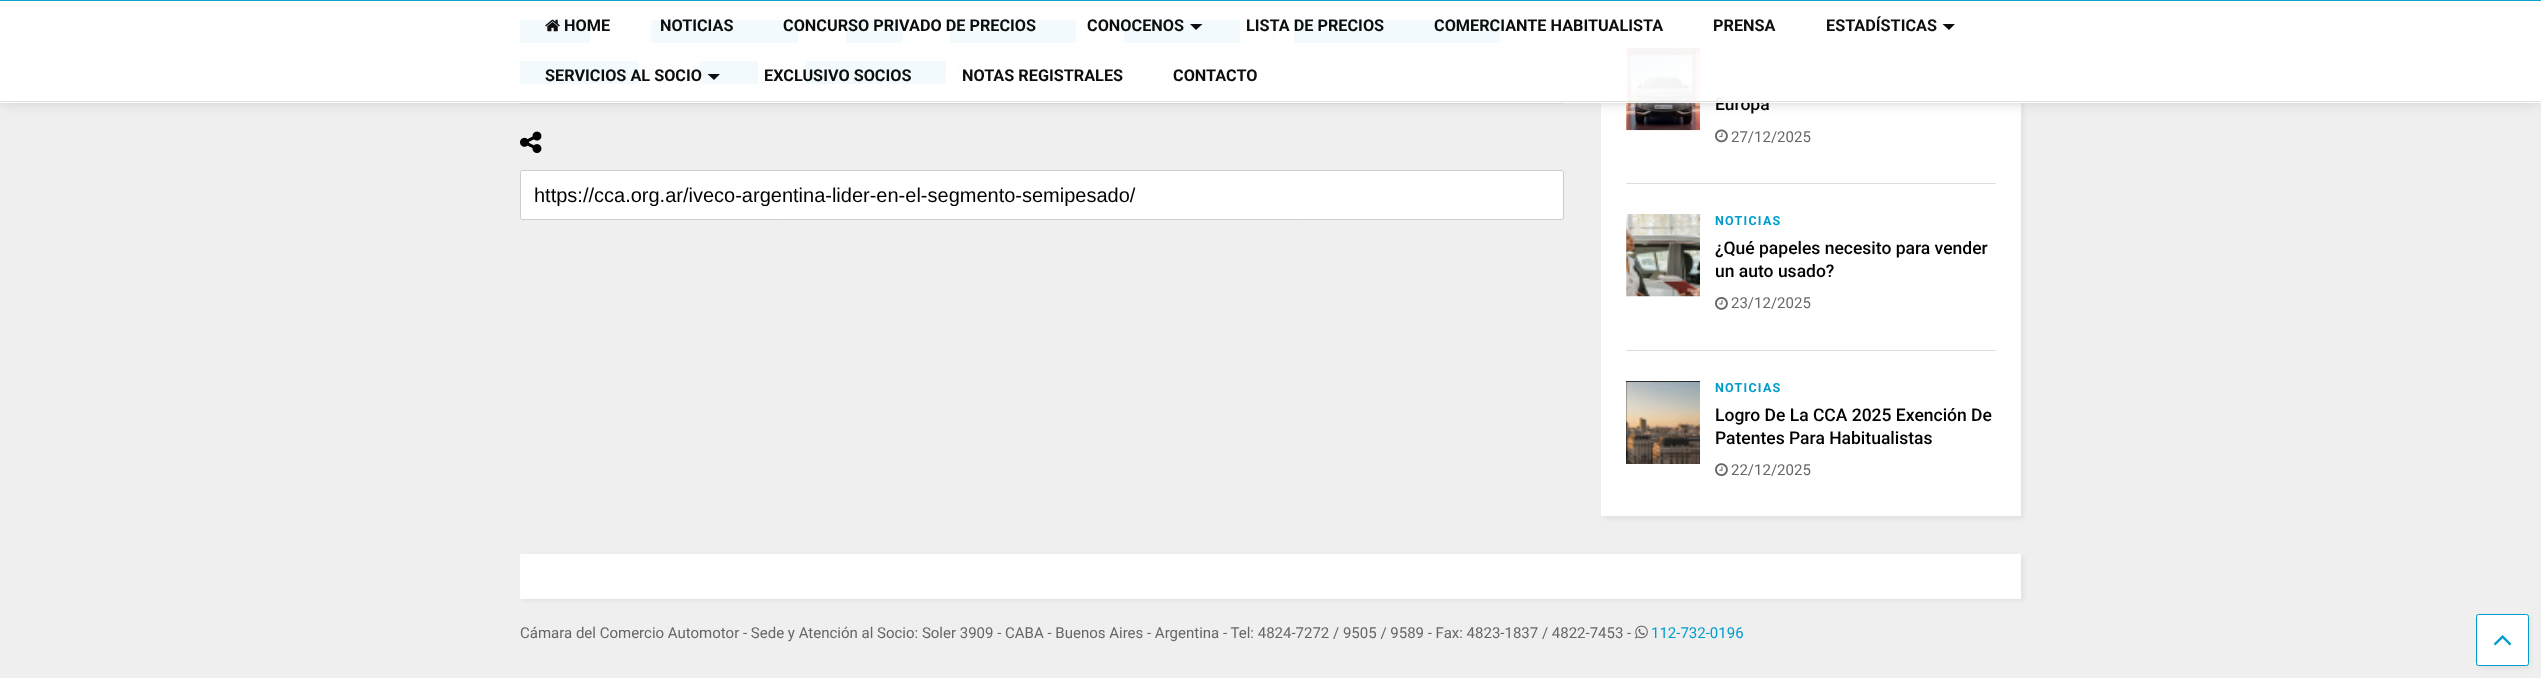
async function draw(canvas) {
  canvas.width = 2541;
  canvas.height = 678;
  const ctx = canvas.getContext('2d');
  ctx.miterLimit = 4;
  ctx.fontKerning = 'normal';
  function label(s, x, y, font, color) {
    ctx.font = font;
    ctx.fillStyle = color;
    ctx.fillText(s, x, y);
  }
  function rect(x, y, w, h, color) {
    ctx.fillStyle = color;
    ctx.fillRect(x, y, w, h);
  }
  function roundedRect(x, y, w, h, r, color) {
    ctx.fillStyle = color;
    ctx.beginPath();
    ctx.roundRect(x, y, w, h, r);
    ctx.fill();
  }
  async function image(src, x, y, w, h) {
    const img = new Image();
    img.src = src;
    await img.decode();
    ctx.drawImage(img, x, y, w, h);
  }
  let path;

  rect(0, 0, 2541, 678, '#efefef');
  roundedRect(520, 20, 70, 23, 2.5, '#009ccc');
  rect(601, 23, 33, 17, '#ddd');
  path = new Path2D('M604 30V37.5L595 34Z');
  ctx.fill(path);
  roundedRect(651, 20, 147, 23, 2.5, '#009ccc');
  rect(809, 23, 20, 17, '#ddd');
  path = new Path2D('M811 30V37.5L802.5 34Z');
  ctx.fill(path);
  roundedRect(846, 20, 57, 23, 2.5, '#009ccc');
  rect(914, 23, 19, 17, '#ddd');
  path = new Path2D('M916 30V37.5L907.5 34Z');
  ctx.fill(path);
  roundedRect(950, 20, 126, 23, 2.5, '#009ccc');
  rect(1086, 23, 20, 17, '#ddd');
  path = new Path2D('M1089 30V37.5L1080 34Z');
  ctx.fill(path);
  roundedRect(1124, 20, 116, 23, 2.5, '#009ccc');
  rect(1250, 23, 26, 17, '#ddd');
  path = new Path2D('M1252.5 30V37.5L1244 34Z');
  ctx.fill(path);
  roundedRect(1294, 20, 206, 23, 2.5, '#009ccc');
  rect(1510, 23, 20, 17, '#ddd');
  path = new Path2D('M1512.5 30V37.5L1504 34Z');
  ctx.fill(path);
  roundedRect(520, 61, 119, 23, 2.5, '#009ccc');
  rect(649, 64, 34, 17, '#ddd');
  path = new Path2D('M651 71V79L642.5 75Z');
  ctx.fill(path);
  roundedRect(700, 61, 58, 23, 2.5, '#009ccc');
  rect(769, 64, 19, 17, '#ddd');
  path = new Path2D('M771 71V79L762.5 75Z');
  ctx.fill(path);
  roundedRect(805, 61, 141, 23, 2.5, '#009ccc');
  rect(956, 64, 20, 17, '#ddd');
  path = new Path2D('M959 71V79L950 75Z');
  ctx.fill(path);
  rect(520, 103, 1044, 1, '#ddd');
  ctx.fillStyle = '#0000000d';
  ctx.filter = 'blur(2px)';
  ctx.beginPath();
  ctx.rect(1604, -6, 420, 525);
  ctx.fill();
  ctx.filter = 'none';
  rect(1601, 1, 420, 515, '#fff');
  rect(1626, 16, 370, 1, '#ddd');
  await image('assets/img3.png', 1626, 47, 74, 84);
  ctx.save();
  path = new Path2D('M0 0H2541V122H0ZM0 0H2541V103H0Z');
  ctx.clip(path, 'evenodd');
  ctx.fillStyle = '#ccccccf2';
  ctx.filter = 'blur(6px)';
  ctx.beginPath();
  ctx.rect(0, 0, 2541, 103);
  ctx.fill();
  ctx.filter = 'none';
  ctx.restore();
  label('Europa', 1715, 110, '500 17.5px Roboto', '#000');
  rect(0, 1, 2541, 102, '#fffffff2');
  rect(0, 0, 2541, 1, '#0da1ce');
  rect(0, 101, 2541, 1, '#ddddddf2');
  await image('assets/img1.png', 545, 19, 15, 13);
  label('HOME', 564, 31, 'bold 16.25px Roboto', '#0c0d0d');
  label('NOTICIAS', 660, 31, 'bold 16.25px Roboto', '#0c0d0d');
  label('CONCURSO PRIVADO DE PRECIOS', 783, 31, 'bold 16.25px Roboto', '#0c0d0d');
  label('CONOCENOS', 1087, 31, 'bold 16.25px Roboto', '#0c0d0d');
  ctx.fillStyle = '#000000f2';
  path = new Path2D('M1190 24H1202.5L1196 30Z');
  ctx.fill(path);
  label('LISTA DE PRECIOS', 1246, 31, 'bold 16.25px Roboto', '#0c0d0d');
  label('COMERCIANTE HABITUALISTA', 1434, 31, 'bold 16.25px Roboto', '#0c0d0d');
  label('PRENSA', 1713, 31, 'bold 16.25px Roboto', '#0c0d0d');
  label('ESTADÍSTICAS', 1826, 31, 'bold 16.25px Roboto', '#0c0d0d');
  ctx.fillStyle = '#0d0d0d';
  path = new Path2D('M1942.5 24H1955L1949 30Z');
  ctx.fill(path);
  label('SERVICIOS AL SOCIO', 545, 81, 'bold 16.25px Roboto', '#0c0d0d');
  ctx.fillStyle = '#000000f2';
  path = new Path2D('M707.5 74H720L714 80Z');
  ctx.fill(path);
  label('EXCLUSIVO SOCIOS', 764, 81, 'bold 16.25px Roboto', '#0c0d0d');
  label('NOTAS REGISTRALES', 962, 81, 'bold 16.25px Roboto', '#0c0d0d');
  label('CONTACTO', 1173, 81, 'bold 16.25px Roboto', '#0c0d0d');
  await image('assets/img2.png', 520, 131, 22, 22);
  ctx.fillStyle = '#fff';
  ctx.beginPath();
  ctx.roundRect(520.5, 170.5, 1043, 49, 2);
  ctx.fill();
  ctx.strokeStyle = '#ccc';
  ctx.stroke();
  ctx.save();
  ctx.beginPath();
  ctx.rect(534, 184, 1016, 22);
  ctx.clip();
  label('https://cca.org.ar/iveco-argentina-lider-en-el-segmento-semipesado/', 534, 202, '20px Liberation Sans', '#000');
  ctx.restore();
  await image('assets/img4.png', 1715, 129, 13, 14);
  label('27/12/2025', 1731, 142, '15px Roboto', '#666');
  rect(1626, 183, 370, 1, '#ddd');
  await image('assets/img5.png', 1626, 214, 74, 83);
  ctx.letterSpacing = '1.25px';
  label('NOTICIAS', 1715, 225, 'bold 12.5px Roboto', '#009ccc');
  ctx.letterSpacing = '0px';
  label('¿Qué papeles necesito para vender', 1715, 254, '500 17.5px Roboto', '#000');
  label('un auto usado?', 1715, 277, '500 17.5px Roboto', '#000');
  await image('assets/img6.png', 1715, 297, 13, 13);
  label('23/12/2025', 1731, 308, '15px Roboto', '#666');
  rect(1626, 350, 370, 1, '#ddd');
  rect(1626, 381, 74, 83, '#000');
  await image('assets/img7.png', 1626, 381, 74, 83);
  ctx.letterSpacing = '1.25px';
  label('NOTICIAS', 1715, 392, 'bold 12.5px Roboto', '#009ccc');
  ctx.letterSpacing = '0px';
  label('Logro De La CCA 2025 Exención De', 1715, 421, '500 17.5px Roboto', '#000');
  label('Patentes Para Habitualistas', 1715, 444, '500 17.5px Roboto', '#000');
  await image('assets/img8.png', 1715, 463, 13, 14);
  label('22/12/2025', 1731, 475, '15px Roboto', '#666');
  ctx.fillStyle = '#0000000d';
  ctx.filter = 'blur(2px)';
  ctx.beginPath();
  ctx.rect(523, 556, 1501, 45);
  ctx.fill();
  ctx.filter = 'none';
  rect(520, 554, 1501, 45, '#fff');
  label('Cámara del Comercio Automotor - Sede y Atención al Socio: Soler 3909 - CABA - Buenos Aires - Argentina - Tel: 4824-7272 / 9505 / 9589 - Fax: 4823-1837 / 4822-7453 -', 520, 638, '15px Roboto', '#666');
  await image('assets/img9.png', 1635, 625, 13, 14);
  label('112-732-0196', 1651, 638, '15px Roboto', '#009ccc');
  ctx.fillStyle = '#0000000d';
  ctx.filter = 'blur(2px)';
  ctx.beginPath();
  ctx.roundRect(2479, 616, 52, 53, 2.5);
  ctx.fill();
  ctx.filter = 'none';
  ctx.fillStyle = '#fff';
  ctx.beginPath();
  ctx.roundRect(2476.5, 614.5, 52, 51, 2);
  ctx.fill();
  ctx.strokeStyle = '#009ccc';
  ctx.stroke();
  await image('assets/img10.png', 2493, 635, 19, 11);
}

draw(document.querySelector('canvas'));
